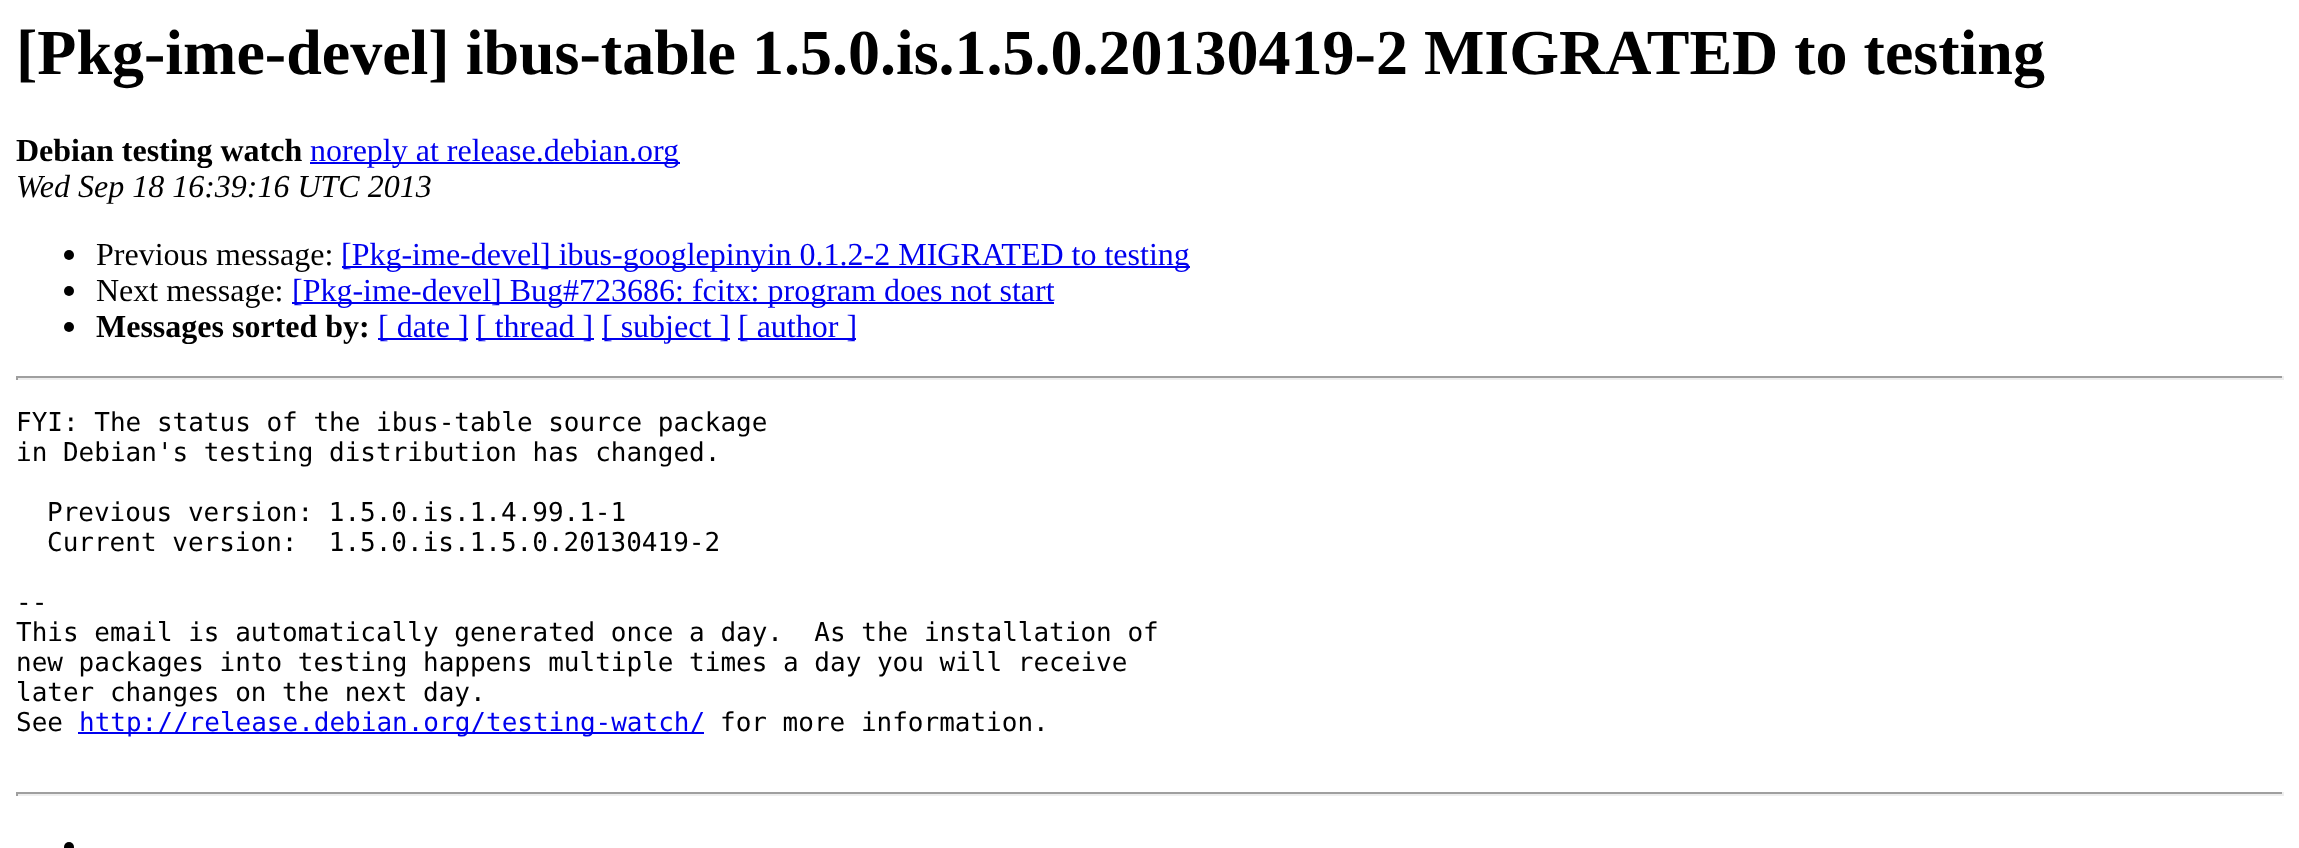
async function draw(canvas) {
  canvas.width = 2299;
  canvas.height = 848;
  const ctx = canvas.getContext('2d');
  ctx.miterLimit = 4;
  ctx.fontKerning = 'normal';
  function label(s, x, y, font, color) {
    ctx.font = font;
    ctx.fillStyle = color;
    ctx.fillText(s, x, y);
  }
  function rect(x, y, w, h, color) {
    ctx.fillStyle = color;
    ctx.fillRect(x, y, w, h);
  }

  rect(0, 0, 2299, 848, '#fff');
  label('[Pkg-ime-devel] ibus-table 1.5.0.is.1.5.0.20130419-2 MIGRATED to testing', 16, 74, 'bold 64px Liberation Serif', '#000');
  label('Debian testing watch', 16, 161, 'bold 32px Liberation Serif', '#000');
  rect(310, 162, 370, 2, '#00e');
  label('noreply at release.debian.org', 310, 161, '32px Liberation Serif', '#00e');
  label('Wed Sep 18 16:39:16 UTC 2013', 16, 197, 'italic 32px Liberation Serif', '#000');
  ctx.beginPath();
  ctx.arc(69, 255, 5, 0, 2 * Math.PI);
  ctx.fill();
  label('Previous message:', 96, 265, '32px Liberation Serif', '#000');
  rect(342, 266, 848, 2, '#00e');
  label('[Pkg-ime-devel] ibus-googlepinyin 0.1.2-2 MIGRATED to testing', 341, 265, '32px Liberation Serif', '#00e');
  ctx.fillStyle = '#000';
  ctx.beginPath();
  ctx.arc(69, 291, 5, 0, 2 * Math.PI);
  ctx.fill();
  label('Next message:', 96, 301, '32px Liberation Serif', '#000');
  rect(292, 302, 762, 2, '#00e');
  label('[Pkg-ime-devel] Bug#723686: fcitx: program does not start', 292, 301, '32px Liberation Serif', '#00e');
  ctx.fillStyle = '#000';
  ctx.beginPath();
  ctx.arc(69, 327, 5, 0, 2 * Math.PI);
  ctx.fill();
  label('Messages sorted by:', 96, 337, 'bold 32px Liberation Serif', '#000');
  rect(378, 338, 90, 2, '#00e');
  label('[ date ]', 378, 337, '32px Liberation Serif', '#00e');
  rect(476, 338, 118, 2, '#00e');
  label('[ thread ]', 476, 337, '32px Liberation Serif', '#00e');
  rect(602, 338, 128, 2, '#00e');
  label('[ subject ]', 602, 337, '32px Liberation Serif', '#00e');
  rect(738, 338, 118, 2, '#00e');
  label('[ author ]', 738, 337, '32px Liberation Serif', '#00e');
  rect(16, 376, 2268, 2, '#9f9f9f');
  rect(2282, 376, 2, 4, '#eee');
  rect(16, 378, 2268, 2, '#eee');
  rect(16, 376, 2, 4, '#9f9f9f');
  label('FYI: The status of the ibus-table source package', 16, 431, '26px DejaVu Sans Mono', '#000');
  label('in Debian\'s testing distribution has changed.', 16, 461, '26px DejaVu Sans Mono', '#000');
  label('Previous version: 1.5.0.is.1.4.99.1-1', 47, 521, '26px DejaVu Sans Mono', '#000');
  label('Current version:  1.5.0.is.1.5.0.20130419-2', 47, 551, '26px DejaVu Sans Mono', '#000');
  label('--', 16, 611, '26px DejaVu Sans Mono', '#000');
  label('This email is automatically generated once a day.  As the installation of', 16, 641, '26px DejaVu Sans Mono', '#000');
  label('new packages into testing happens multiple times a day you will receive', 16, 671, '26px DejaVu Sans Mono', '#000');
  label('later changes on the next day.', 16, 701, '26px DejaVu Sans Mono', '#000');
  label('See', 16, 731, '26px DejaVu Sans Mono', '#000');
  rect(78, 732, 626, 2, '#00e');
  label('http://release.debian.org/testing-watch/', 79, 731, '26px DejaVu Sans Mono', '#00e');
  label('for more information.', 720, 731, '26px DejaVu Sans Mono', '#000');
  rect(16, 792, 2268, 2, '#9f9f9f');
  rect(2282, 792, 2, 4, '#eee');
  rect(16, 794, 2268, 2, '#eee');
  rect(16, 792, 2, 4, '#9f9f9f');
  ctx.fillStyle = '#000';
  ctx.beginPath();
  ctx.arc(69, 847, 5, 0, 2 * Math.PI);
  ctx.fill();
}

draw(document.querySelector('canvas'));
